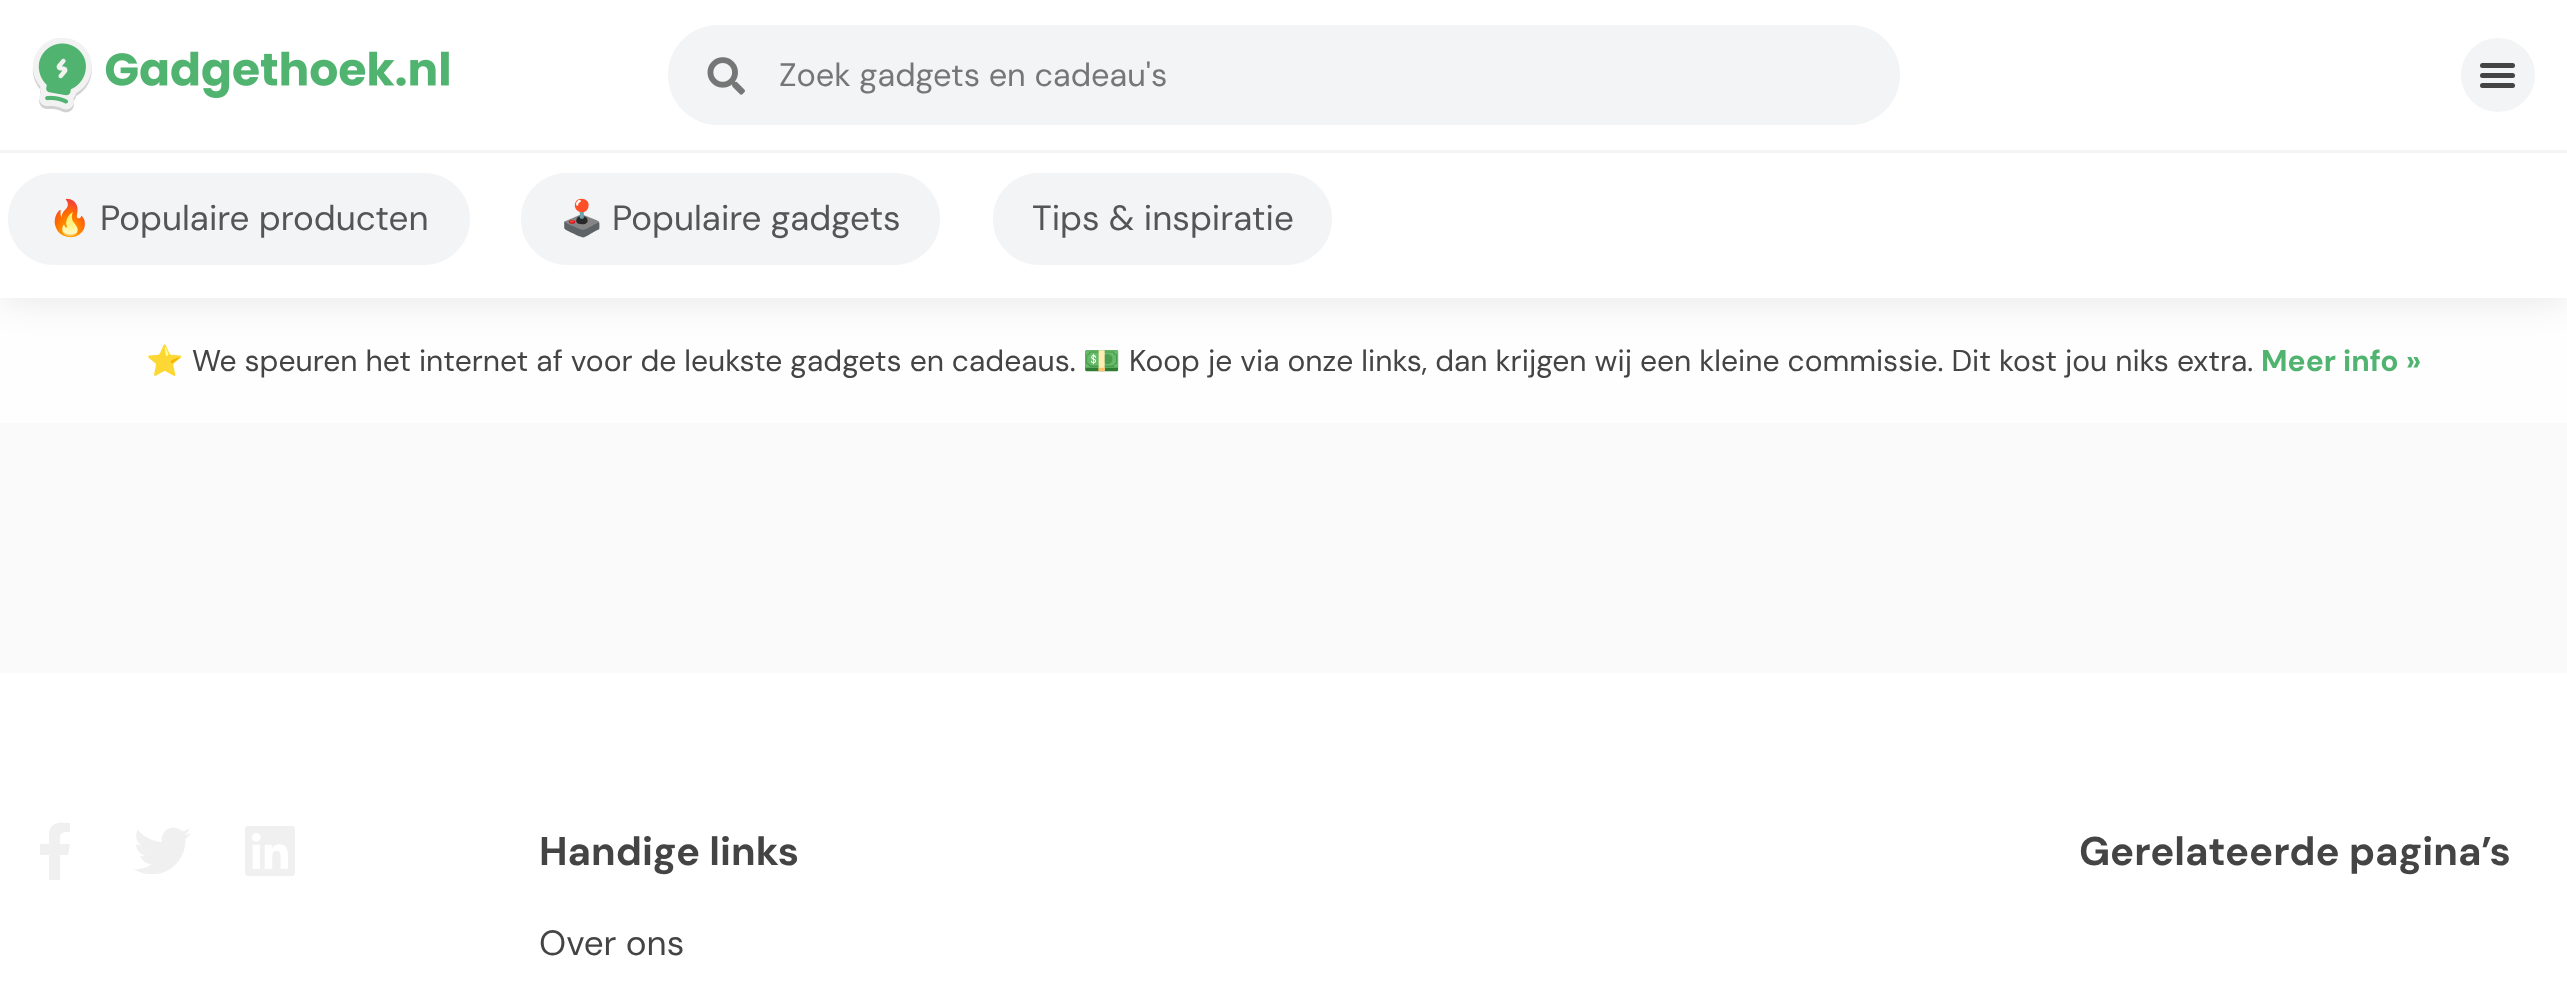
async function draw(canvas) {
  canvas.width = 2567;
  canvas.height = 1001;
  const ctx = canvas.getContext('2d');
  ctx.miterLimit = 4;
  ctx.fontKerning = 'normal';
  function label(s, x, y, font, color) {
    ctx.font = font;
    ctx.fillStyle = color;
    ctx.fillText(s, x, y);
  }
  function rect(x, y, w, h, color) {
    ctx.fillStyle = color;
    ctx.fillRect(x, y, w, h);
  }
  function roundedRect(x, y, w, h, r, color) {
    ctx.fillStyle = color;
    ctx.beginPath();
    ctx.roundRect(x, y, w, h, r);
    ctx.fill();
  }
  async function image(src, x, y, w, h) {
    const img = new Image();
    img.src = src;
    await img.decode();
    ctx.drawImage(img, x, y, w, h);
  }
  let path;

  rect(0, 0, 2567, 1001, '#fafafa');
  rect(0, 298, 2567, 125, '#fefefe');
  ctx.fillStyle = '#0000001a';
  ctx.filter = 'blur(19px)';
  ctx.beginPath();
  ctx.rect(0, 153, 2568, 145);
  ctx.fill();
  ctx.filter = 'none';
  rect(0, 0, 2567, 150, '#fff');
  rect(0, 150, 2567, 3, '#f3f4f5');
  await image('assets/img1.png', 32, 38, 417, 75);
  roundedRect(668, 25, 1232, 100, 50, '#f3f4f5');
  await image('assets/img2.png', 707, 57, 38, 38);
  label('Zoek gadgets en cadeau\'s', 779, 86, '32.5px DM Sans', '#767676');
  ctx.fillStyle = '#f3f4f5';
  ctx.beginPath();
  ctx.arc(2498, 75, 41, 0, 2 * Math.PI);
  ctx.fill();
  ctx.strokeStyle = '#fff';
  ctx.lineWidth = 8;
  ctx.stroke();
  roundedRect(2480, 63, 35, 5, 2.5, '#444');
  roundedRect(2480, 73, 35, 5, 2.5, '#444');
  roundedRect(2480, 83, 35, 5, 2.5, '#444');
  rect(0, 153, 2567, 145, '#fff');
  ctx.fillStyle = '#f3f4f5';
  ctx.beginPath();
  ctx.roundRect(4, 169, 470, 100, 50);
  ctx.fill();
  ctx.stroke();
  label('🔥', 48, 230, '35px Noto Color Emoji', '#555');
  label('Populaire producten', 100, 230, '35px DM Sans', '#555');
  ctx.fillStyle = '#f3f4f5';
  ctx.beginPath();
  ctx.roundRect(517, 169, 427, 100, 50);
  ctx.fill();
  ctx.stroke();
  label('🕹️', 560, 230, '35px Noto Color Emoji', '#555');
  label('Populaire gadgets', 612, 230, '35px DM Sans', '#555');
  ctx.fillStyle = '#f3f4f5';
  ctx.beginPath();
  ctx.roundRect(989, 169, 347, 100, 50);
  ctx.fill();
  ctx.stroke();
  label('Tips & inspiratie', 1032, 230, '35px DM Sans', '#555');
  label('⭐', 146, 371, '30px Noto Color Emoji', '#444');
  label('We speuren het internet af voor de leukste gadgets en cadeaus.', 192, 371, '30px DM Sans', '#444');
  label('💵', 1083, 371, '30px Noto Color Emoji', '#444');
  label('Koop je via onze links, dan krijgen wij een kleine commissie. Dit kost jou niks extra.', 1129, 371, '30px DM Sans', '#444');
  label('Meer info »', 2261, 371, 'bold 30px DM Sans', '#50b36f');
  rect(0, 673, 2567, 328, '#fff');
  ctx.fillStyle = '#f0f0f0';
  path = new Path2D('M68 855H60V880H49V855H40V844H49V833C51 821 61 822 70 823V832C59 832 60 834 60 844H70Z');
  ctx.fill(path);
  await image('assets/img3.png', 134, 827, 57, 47);
  await image('assets/img4.png', 245, 826, 50, 50);
  label('Handige links', 539, 865, 'bold 40px DM Sans', '#444');
  label('Over ons', 539, 955, '35px DM Sans', '#444');
  label('Gerelateerde pagina’s', 2079, 865, 'bold 40px DM Sans', '#444');
}

draw(document.querySelector('canvas'));
